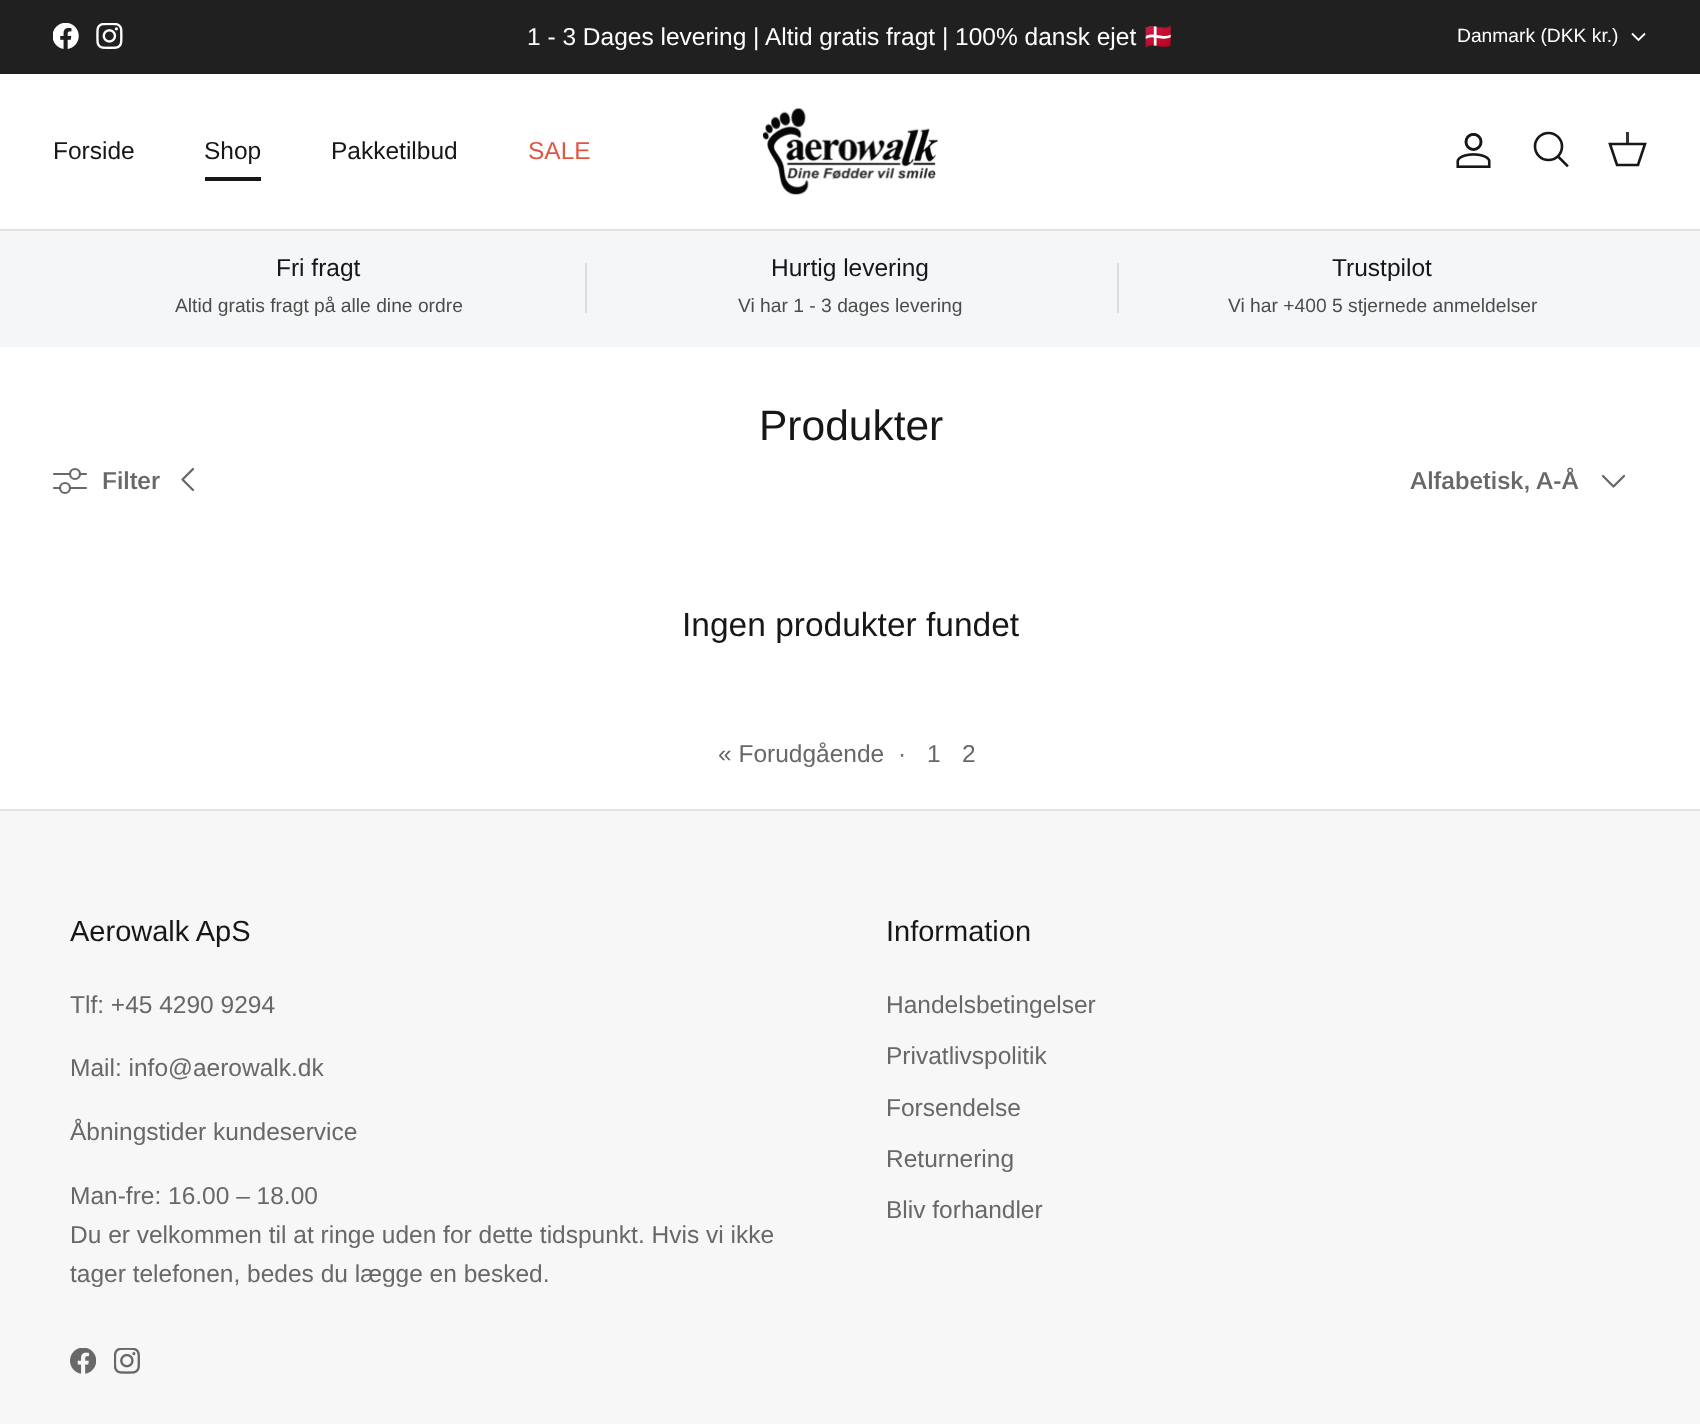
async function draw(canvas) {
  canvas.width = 1700;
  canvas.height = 1424;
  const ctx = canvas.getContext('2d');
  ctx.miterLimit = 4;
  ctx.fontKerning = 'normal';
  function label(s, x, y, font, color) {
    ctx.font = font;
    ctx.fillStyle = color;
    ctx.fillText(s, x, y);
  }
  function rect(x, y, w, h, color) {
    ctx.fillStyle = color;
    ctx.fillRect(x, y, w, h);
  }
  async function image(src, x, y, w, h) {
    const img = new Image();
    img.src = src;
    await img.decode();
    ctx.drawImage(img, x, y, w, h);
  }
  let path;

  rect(0, 0, 1700, 1424, '#fff');
  rect(0, 0, 1700, 74, '#202020');
  await image('assets/img1.png', 53, 23, 26, 26);
  await image('assets/img2.png', 96, 23, 27, 26);
  label('1 - 3 Dages levering | Altid gratis fragt | 100% dansk ejet', 527, 45, '24.5px Arimo', '#fff');
  label('🇩🇰', 1143, 45, '24.5px Noto Color Emoji', '#fff');
  label('Danmark (DKK kr.)', 1457, 42, '19.25px Arimo', '#fff');
  path = new Path2D('M1645 33.5L1638.5 40L1632 33.5');
  ctx.strokeStyle = '#fff';
  ctx.lineWidth = 1.8;
  ctx.stroke(path);
  rect(0, 229, 1700, 2, '#e2e2e2');
  label('Forside', 53, 159, '24.5px Arimo', '#171717');
  label('Shop', 204, 159, '24.5px Arimo', '#171717');
  rect(205, 177, 56, 4, '#171717');
  label('Pakketilbud', 331, 159, '24.5px Arimo', '#171717');
  label('SALE', 528, 159, '24.5px Arimo', '#df5641');
  await image('assets/img3.png', 763, 107, 175, 88);
  await image('assets/img4.png', 1456, 133, 35, 35);
  ctx.beginPath();
  ctx.arc(1548.5, 146.5, 13.5, 0, 2 * Math.PI);
  ctx.strokeStyle = '#171717';
  ctx.lineWidth = 2.6;
  ctx.stroke();
  path = new Path2D('M1559 157.5L1567 165.5');
  ctx.lineCap = 'square';
  ctx.stroke(path);
  path = new Path2D('M1610 144H1645L1638 165H1617Z');
  ctx.lineCap = 'butt';
  ctx.stroke(path);
  rect(1626, 132, 3, 13, '#171717de');
  rect(0, 231, 1700, 116, '#f4f6f8');
  label('Fri fragt', 276, 276, '24.5px Arimo', '#171717');
  label('Altid gratis fragt på alle dine ordre', 175, 312, '19.25px Arimo', '#4c4c4b');
  rect(585, 263, 2, 50, '#dbddde');
  label('Hurtig levering', 771, 276, '24.5px Arimo', '#171717');
  label('Vi har 1 - 3 dages levering', 738, 312, '19.25px Arimo', '#4c4c4b');
  rect(1117, 263, 2, 50, '#dbddde');
  label('Trustpilot', 1332, 276, '24.5px Arimo', '#171717');
  label('Vi har +400 5 stjernede anmeldelser', 1228, 312, '19.25px Arimo', '#4c4c4b');
  label('Produkter', 759, 440, '42.5px Arimo', '#171717');
  path = new Path2D('M54 474H86M54 488H86');
  ctx.strokeStyle = '#676869';
  ctx.lineWidth = 2.2;
  ctx.lineCap = 'round';
  ctx.lineJoin = 'round';
  ctx.stroke(path);
  ctx.fillStyle = '#fff';
  ctx.beginPath();
  ctx.arc(75, 474, 5, 0, 2 * Math.PI);
  ctx.fill();
  ctx.stroke();
  ctx.beginPath();
  ctx.arc(65, 488, 5, 0, 2 * Math.PI);
  ctx.fill();
  ctx.stroke();
  label('Filter', 102, 489, '600 24.5px Arimo', '#676869');
  path = new Path2D('M193 469L182.5 479.5L193 490');
  ctx.lineWidth = 2.3;
  ctx.stroke(path);
  label('Alfabetisk, A-Å', 1410, 489, '600 24.5px Arimo', '#676869');
  path = new Path2D('M1603 476L1613.5 486.5L1624 476');
  ctx.stroke(path);
  label('Ingen produkter fundet', 682, 636, '33.5px Arimo', '#171717');
  label('« Forudgående', 718, 762, '24.5px Arimo', '#676869');
  label('·', 898, 762, '24.5px Arimo', '#676869');
  label('1', 927, 762, '24.5px Arimo', '#676869');
  label('2', 962, 762, '24.5px Arimo', '#676869');
  rect(0, 811, 1700, 613, '#f7f7f8');
  rect(0, 809, 1700, 2, '#e4e4e4');
  label('Aerowalk ApS', 70, 941, '29px Arimo', '#171717');
  label('Tlf: +45 4290 9294', 70, 1013, '24.5px Arimo', '#676869');
  label('Mail: info@aerowalk.dk', 70, 1076, '24.5px Arimo', '#676869');
  label('Åbningstider kundeservice', 70, 1140, '24.5px Arimo', '#676869');
  label('Man-fre: 16.00 – 18.00', 70, 1204, '24.5px Arimo', '#676869');
  label('Du er velkommen til at ringe uden for dette tidspunkt. Hvis vi ikke', 70, 1243, '24.5px Arimo', '#676869');
  label('tager telefonen, bedes du lægge en besked.', 70, 1282, '24.5px Arimo', '#676869');
  await image('assets/img5.png', 70, 1348, 26, 26);
  await image('assets/img6.png', 114, 1348, 26, 26);
  label('Information', 886, 941, '29px Arimo', '#171717');
  label('Handelsbetingelser', 886, 1013, '24.5px Arimo', '#676869');
  label('Privatlivspolitik', 886, 1064, '24.5px Arimo', '#676869');
  label('Forsendelse', 886, 1116, '24.5px Arimo', '#676869');
  label('Returnering', 886, 1167, '24.5px Arimo', '#676869');
  label('Bliv forhandler', 886, 1218, '24.5px Arimo', '#676869');
}

draw(document.querySelector('canvas'));
